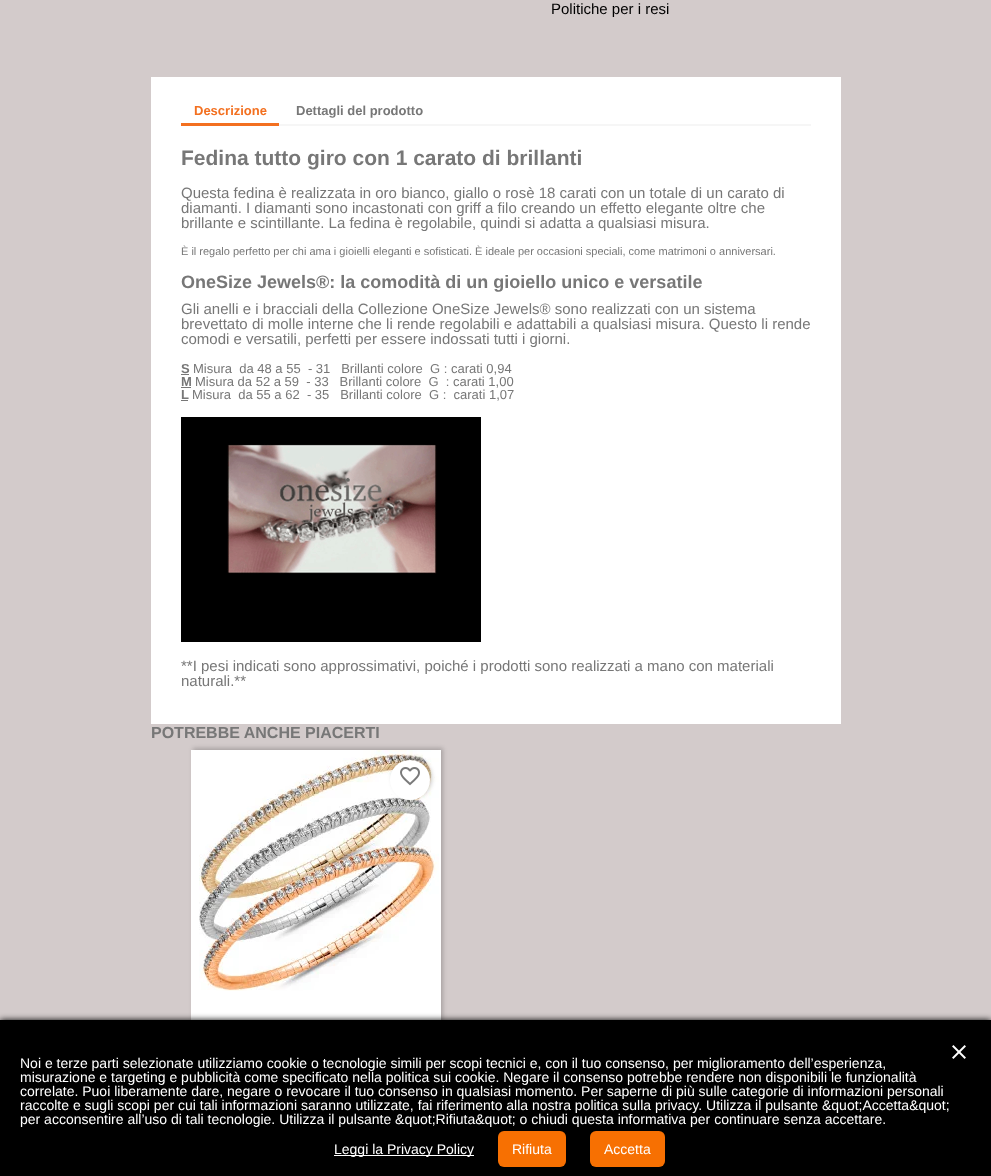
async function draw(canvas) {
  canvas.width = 991;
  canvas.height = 1176;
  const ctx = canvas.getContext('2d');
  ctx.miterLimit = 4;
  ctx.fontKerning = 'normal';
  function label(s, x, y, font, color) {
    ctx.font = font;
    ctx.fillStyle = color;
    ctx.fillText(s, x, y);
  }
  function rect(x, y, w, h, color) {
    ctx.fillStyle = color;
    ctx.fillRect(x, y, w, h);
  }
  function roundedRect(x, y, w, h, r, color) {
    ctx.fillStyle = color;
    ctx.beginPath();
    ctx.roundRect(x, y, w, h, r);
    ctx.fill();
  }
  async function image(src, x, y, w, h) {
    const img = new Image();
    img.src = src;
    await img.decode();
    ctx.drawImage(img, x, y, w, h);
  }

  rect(0, 0, 991, 1176, '#d3cbcb');
  label('Politiche per i resi', 551, 14, '15px Liberation Sans', '#000');
  rect(151, 77, 690, 647, '#fff');
  rect(279, 124, 532, 2, '#f6f6f6');
  rect(181, 123, 98, 3, '#f37020');
  label('Descrizione', 194, 115, 'bold 13px Liberation Sans', '#f37020');
  label('Dettagli del prodotto', 296, 115, 'bold 13px Liberation Sans', '#777');
  label('Fedina tutto giro con 1 carato di brillanti', 181, 165, 'bold 21px Liberation Sans', '#777');
  label('Questa fedina è realizzata in oro bianco, giallo o rosè 18 carati con un totale di un carato di', 181, 198, '15px Liberation Sans', '#777');
  label('diamanti. I diamanti sono incastonati con griff a filo creando un effetto elegante oltre che', 181, 213, '15px Liberation Sans', '#777');
  label('brillante e scintillante. La fedina è regolabile, quindi si adatta a qualsiasi misura.', 181, 228, '15px Liberation Sans', '#777');
  label('È il regalo perfetto per chi ama i gioielli eleganti e sofisticati. È ideale per occasioni speciali, come matrimoni o anniversari.', 181, 255, '11px Liberation Sans', '#777');
  label('OneSize Jewels®: la comodità di un gioiello unico e versatile', 181, 288, 'bold 18px Liberation Sans', '#777');
  label('Gli anelli e i bracciali della Collezione OneSize Jewels® sono realizzati con un sistema', 181, 314, '15px Liberation Sans', '#777');
  label('brevettato di molle interne che li rende regolabili e adattabili a qualsiasi misura. Questo li rende', 181, 329, '15px Liberation Sans', '#777');
  label('comodi e versatili, perfetti per essere indossati tutti i giorni.', 181, 344, '15px Liberation Sans', '#777');
  label('S', 181, 373, 'bold 13px Liberation Sans', '#777');
  rect(181, 374, 8, 1, '#777');
  label('Misura  da 48 a 55  - 31   Brillanti colore  G : carati 0,94', 193, 373, '13px Liberation Sans', '#777');
  label('M', 181, 386, 'bold 13px Liberation Sans', '#777');
  rect(181, 387, 10, 1, '#777');
  label('Misura da 52 a 59  - 33   Brillanti colore  G  : carati 1,00', 195, 386, '13px Liberation Sans', '#777');
  label('L', 181, 399, 'bold 13px Liberation Sans', '#777');
  rect(181, 400, 7, 1, '#777');
  label('Misura  da 55 a 62  - 35   Brillanti colore  G :  carati 1,07', 192, 399, '13px Liberation Sans', '#777');
  await image('assets/img1.png', 181, 417, 300, 225);
  label('**I pesi indicati sono approssimativi, poiché i prodotti sono realizzati a mano con materiali', 181, 671, '15px Liberation Sans', '#777');
  label('naturali.**', 181, 686, '15px Liberation Sans', '#777');
  label('POTREBBE ANCHE PIACERTI', 151, 738, 'bold 16px Liberation Sans', '#777');
  ctx.fillStyle = '#00000033';
  ctx.filter = 'blur(2px)';
  ctx.beginPath();
  ctx.rect(193, 748, 250, 317);
  ctx.fill();
  ctx.filter = 'none';
  rect(191, 750, 250, 270, '#fff');
  await image('assets/img2.png', 199, 750, 240, 241);
  ctx.fillStyle = '#00000033';
  ctx.filter = 'blur(2px)';
  ctx.beginPath();
  ctx.roundRect(392, 758, 40, 40, 20);
  ctx.fill();
  ctx.filter = 'none';
  ctx.fillStyle = '#fff';
  ctx.beginPath();
  ctx.arc(410, 780, 20, 0, 2 * Math.PI);
  ctx.fill();
  await image('assets/img3.png', 400, 767, 20, 19);
  ctx.fillStyle = '#000';
  ctx.filter = 'blur(3px)';
  ctx.beginPath();
  ctx.rect(0, 1020, 991, 156);
  ctx.fill();
  ctx.filter = 'none';
  rect(0, 1020, 991, 156, '#000');
  await image('assets/img4.png', 952, 1045, 14, 14);
  label('Noi e terze parti selezionate utilizziamo cookie o tecnologie simili per scopi tecnici e, con il tuo consenso, per miglioramento dell’esperienza,', 20, 1068, '14px Liberation Sans', '#fff');
  label('misurazione e targeting e pubblicità come specificato nella politica sui cookie. Negare il consenso potrebbe rendere non disponibili le funzionalità', 20, 1082, '14px Liberation Sans', '#fff');
  label('correlate. Puoi liberamente dare, negare o revocare il tuo consenso in qualsiasi momento. Per saperne di più sulle categorie di informazioni personali', 20, 1096, '14px Liberation Sans', '#fff');
  label('raccolte e sugli scopi per cui tali informazioni saranno utilizzate, fai riferimento alla nostra politica sulla privacy. Utilizza il pulsante &quot;Accetta&quot;', 20, 1110, '14px Liberation Sans', '#fff');
  label('per acconsentire all’uso di tali tecnologie. Utilizza il pulsante &quot;Rifiuta&quot; o chiudi questa informativa per continuare senza accettare.', 20, 1124, '14px Liberation Sans', '#fff');
  rect(334, 1155, 140, 1, '#fff');
  label('Leggi la Privacy Policy', 334, 1154, '14px Liberation Sans', '#fff');
  roundedRect(498, 1131, 68, 36, 6, '#f77002');
  label('Rifiuta', 512, 1154, '14px Liberation Sans', '#fff');
  roundedRect(590, 1131, 75, 36, 6, '#f77002');
  label('Accetta', 604, 1154, '14px Liberation Sans', '#fff');
}

draw(document.querySelector('canvas'));
